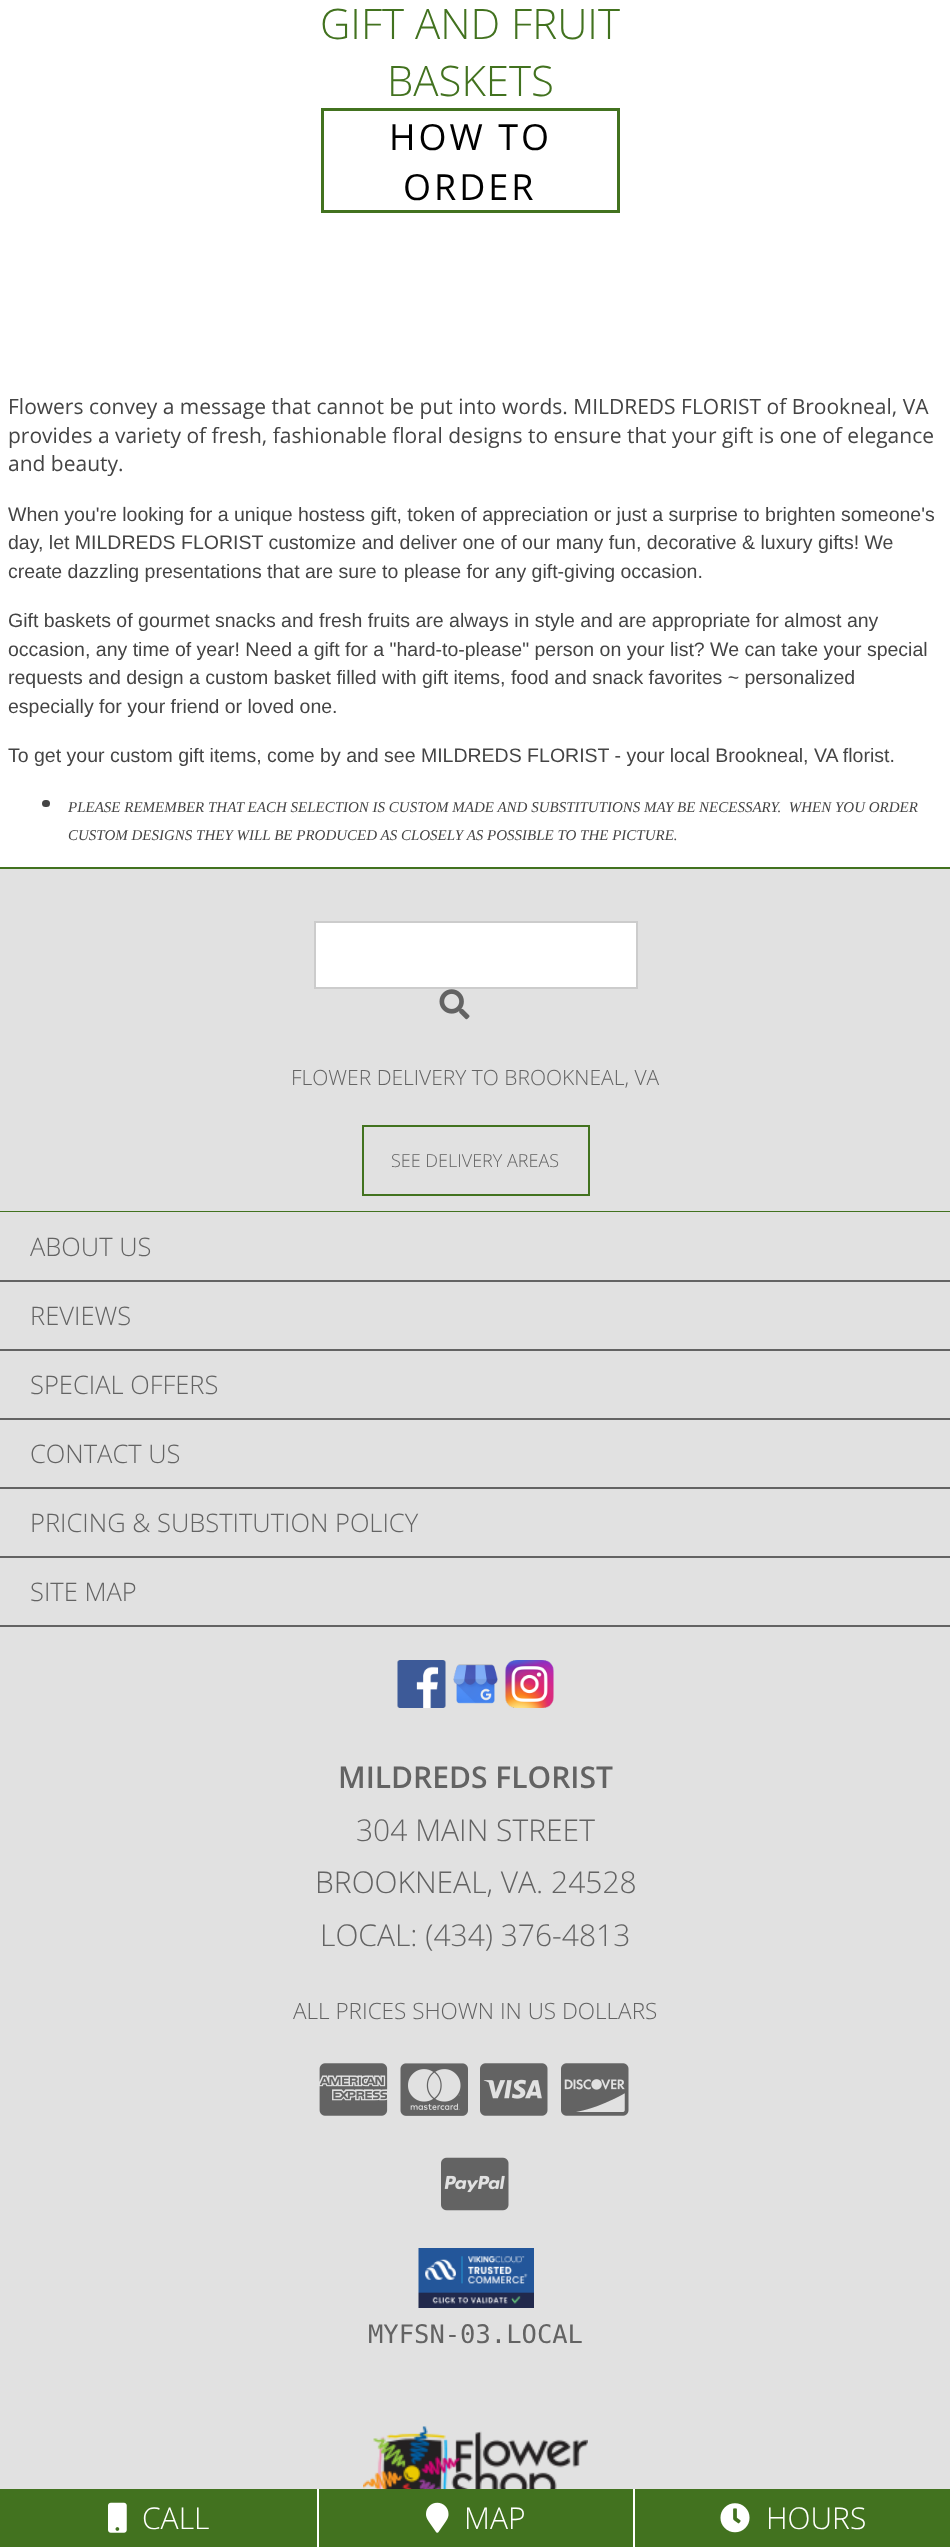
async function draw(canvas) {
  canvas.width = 950;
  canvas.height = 2547;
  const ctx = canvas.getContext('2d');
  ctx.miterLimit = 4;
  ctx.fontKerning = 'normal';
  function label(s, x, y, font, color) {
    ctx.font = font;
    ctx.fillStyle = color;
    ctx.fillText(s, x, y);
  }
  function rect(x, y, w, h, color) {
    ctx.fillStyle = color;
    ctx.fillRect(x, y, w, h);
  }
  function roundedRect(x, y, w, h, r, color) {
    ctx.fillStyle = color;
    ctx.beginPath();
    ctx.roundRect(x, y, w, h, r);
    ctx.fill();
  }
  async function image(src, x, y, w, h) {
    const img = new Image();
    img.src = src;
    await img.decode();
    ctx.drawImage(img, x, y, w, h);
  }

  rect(0, 0, 950, 2547, '#fff');
  label('GIFT AND FRUIT', 320, 39, '300 42px Open Sans', '#42721f');
  label('BASKETS', 387, 96, '300 42px Open Sans', '#42721f');
  ctx.strokeStyle = '#42721f';
  ctx.lineWidth = 3;
  ctx.strokeRect(322.5, 109.5, 296, 102);
  ctx.letterSpacing = '3px';
  label('HOW TO', 389, 150, '36px Open Sans', '#000');
  label('ORDER', 403, 200, '36px Open Sans', '#000');
  ctx.letterSpacing = '0px';
  label('Flowers convey a message that cannot be put into words. MILDREDS FLORIST of Brookneal, VA', 8, 414, '21px Open Sans', '#444');
  label('provides a variety of fresh, fashionable floral designs to ensure that your gift is one of elegance', 8, 443, '21px Open Sans', '#444');
  label('and beauty.', 8, 471, '21px Open Sans', '#444');
  label('When you\'re looking for a unique hostess gift, token of appreciation or just a surprise to brighten someone\'s', 8, 521, '19.5px Liberation Sans', '#444');
  label('day, let MILDREDS FLORIST customize and deliver one of our many fun, decorative & luxury gifts! We', 8, 549, '19.5px Liberation Sans', '#444');
  label('create dazzling presentations that are sure to please for any gift-giving occasion.', 8, 578, '19.5px Liberation Sans', '#444');
  label('Gift baskets of gourmet snacks and fresh fruits are always in style and are appropriate for almost any', 8, 627, '19.5px Liberation Sans', '#444');
  label('occasion, any time of year! Need a gift for a "hard-to-please" person on your list? We can take your special', 8, 656, '19.5px Liberation Sans', '#444');
  label('requests and design a custom basket filled with gift items, food and snack favorites ~ personalized', 8, 684, '19.5px Liberation Sans', '#444');
  label('especially for your friend or loved one.', 8, 713, '19.5px Liberation Sans', '#444');
  label('To get your custom gift items, come by and see MILDREDS FLORIST - your local Brookneal, VA florist.', 8, 762, '19.5px Liberation Sans', '#444');
  roundedRect(42, 800, 8, 7, 3.5, '#444');
  label('PLEASE REMEMBER THAT EACH SELECTION IS CUSTOM MADE AND SUBSTITUTIONS MAY BE NECESSARY.  WHEN YOU ORDER', 68, 812, 'italic 15px Liberation Serif', '#444');
  label('CUSTOM DESIGNS THEY WILL BE PRODUCED AS CLOSELY AS POSSIBLE TO THE PICTURE.', 68, 840, 'italic 15px Liberation Serif', '#444');
  rect(0, 869, 950, 342, '#e1e1e1');
  rect(0, 867, 950, 2, '#42721f');
  rect(0, 1211, 950, 1, '#42721f');
  ctx.fillStyle = '#fff';
  ctx.beginPath();
  ctx.rect(315, 922, 322, 66);
  ctx.fill();
  ctx.strokeStyle = '#ccc';
  ctx.lineWidth = 2;
  ctx.stroke();
  await image('assets/img1.png', 439, 989, 31, 31);
  label('FLOWER DELIVERY TO BROOKNEAL, VA', 291, 1085, '300 21px Open Sans', '#636363');
  ctx.strokeStyle = '#42721f';
  ctx.strokeRect(363, 1126, 226, 69);
  label('SEE DELIVERY AREAS', 391, 1167, '300 18px Open Sans', '#636363');
  rect(0, 1212, 950, 1277, '#e1e1e1');
  rect(0, 1280, 950, 2, '#636363');
  label('ABOUT US', 30, 1256, '300 25.5px Open Sans', '#636363');
  rect(0, 1349, 950, 2, '#636363');
  label('REVIEWS', 30, 1325, '300 25.5px Open Sans', '#636363');
  rect(0, 1418, 950, 2, '#636363');
  label('SPECIAL OFFERS', 30, 1394, '300 25.5px Open Sans', '#636363');
  rect(0, 1487, 950, 2, '#636363');
  label('CONTACT US', 30, 1463, '300 25.5px Open Sans', '#636363');
  rect(0, 1556, 950, 2, '#636363');
  label('PRICING & SUBSTITUTION POLICY', 30, 1532, '300 25.5px Open Sans', '#636363');
  rect(0, 1625, 950, 2, '#636363');
  label('SITE MAP', 30, 1601, '300 25.5px Open Sans', '#636363');
  await image('assets/img2.png', 397, 1660, 49, 48);
  await image('assets/img3.png', 453, 1664, 45, 40);
  await image('assets/img4.png', 505, 1660, 49, 48);
  label('MILDREDS FLORIST', 338, 1788, '600 30px Open Sans', '#636363');
  label('304 MAIN STREET', 356, 1841, '300 30px Open Sans', '#636363');
  label('BROOKNEAL, VA. 24528', 315, 1893, '300 30px Open Sans', '#636363');
  label('LOCAL: (434) 376-4813', 320, 1946, '300 30px Open Sans', '#636363');
  label('ALL PRICES SHOWN IN US DOLLARS', 293, 2019, '300 22.5px Open Sans', '#636363');
  await image('assets/img5.png', 319, 2063, 69, 53);
  await image('assets/img6.png', 400, 2063, 68, 53);
  await image('assets/img7.png', 480, 2063, 68, 53);
  await image('assets/img8.png', 561, 2063, 68, 53);
  await image('assets/img9.png', 441, 2157, 68, 54);
  await image('assets/img10.png', 418, 2248, 116, 60);
  label('MYFSN-03.LOCAL', 368, 2343, '25.5px DejaVu Sans Mono', '#636363');
  await image('assets/img11.png', 363, 2426, 225, 63);
  rect(0, 2489, 317, 58, '#42721f');
  await image('assets/img12.png', 108, 2502, 19, 31);
  label('CALL', 142, 2529, '300 30px Open Sans', '#fff');
  rect(319, 2489, 314, 58, '#42721f');
  await image('assets/img13.png', 426, 2502, 23, 31);
  label('MAP', 464, 2529, '300 30px Open Sans', '#fff');
  rect(635, 2489, 315, 58, '#42721f');
  await image('assets/img14.png', 720, 2503, 30, 30);
  label('HOURS', 766, 2529, '300 30px Open Sans', '#fff');
}

draw(document.querySelector('canvas'));
